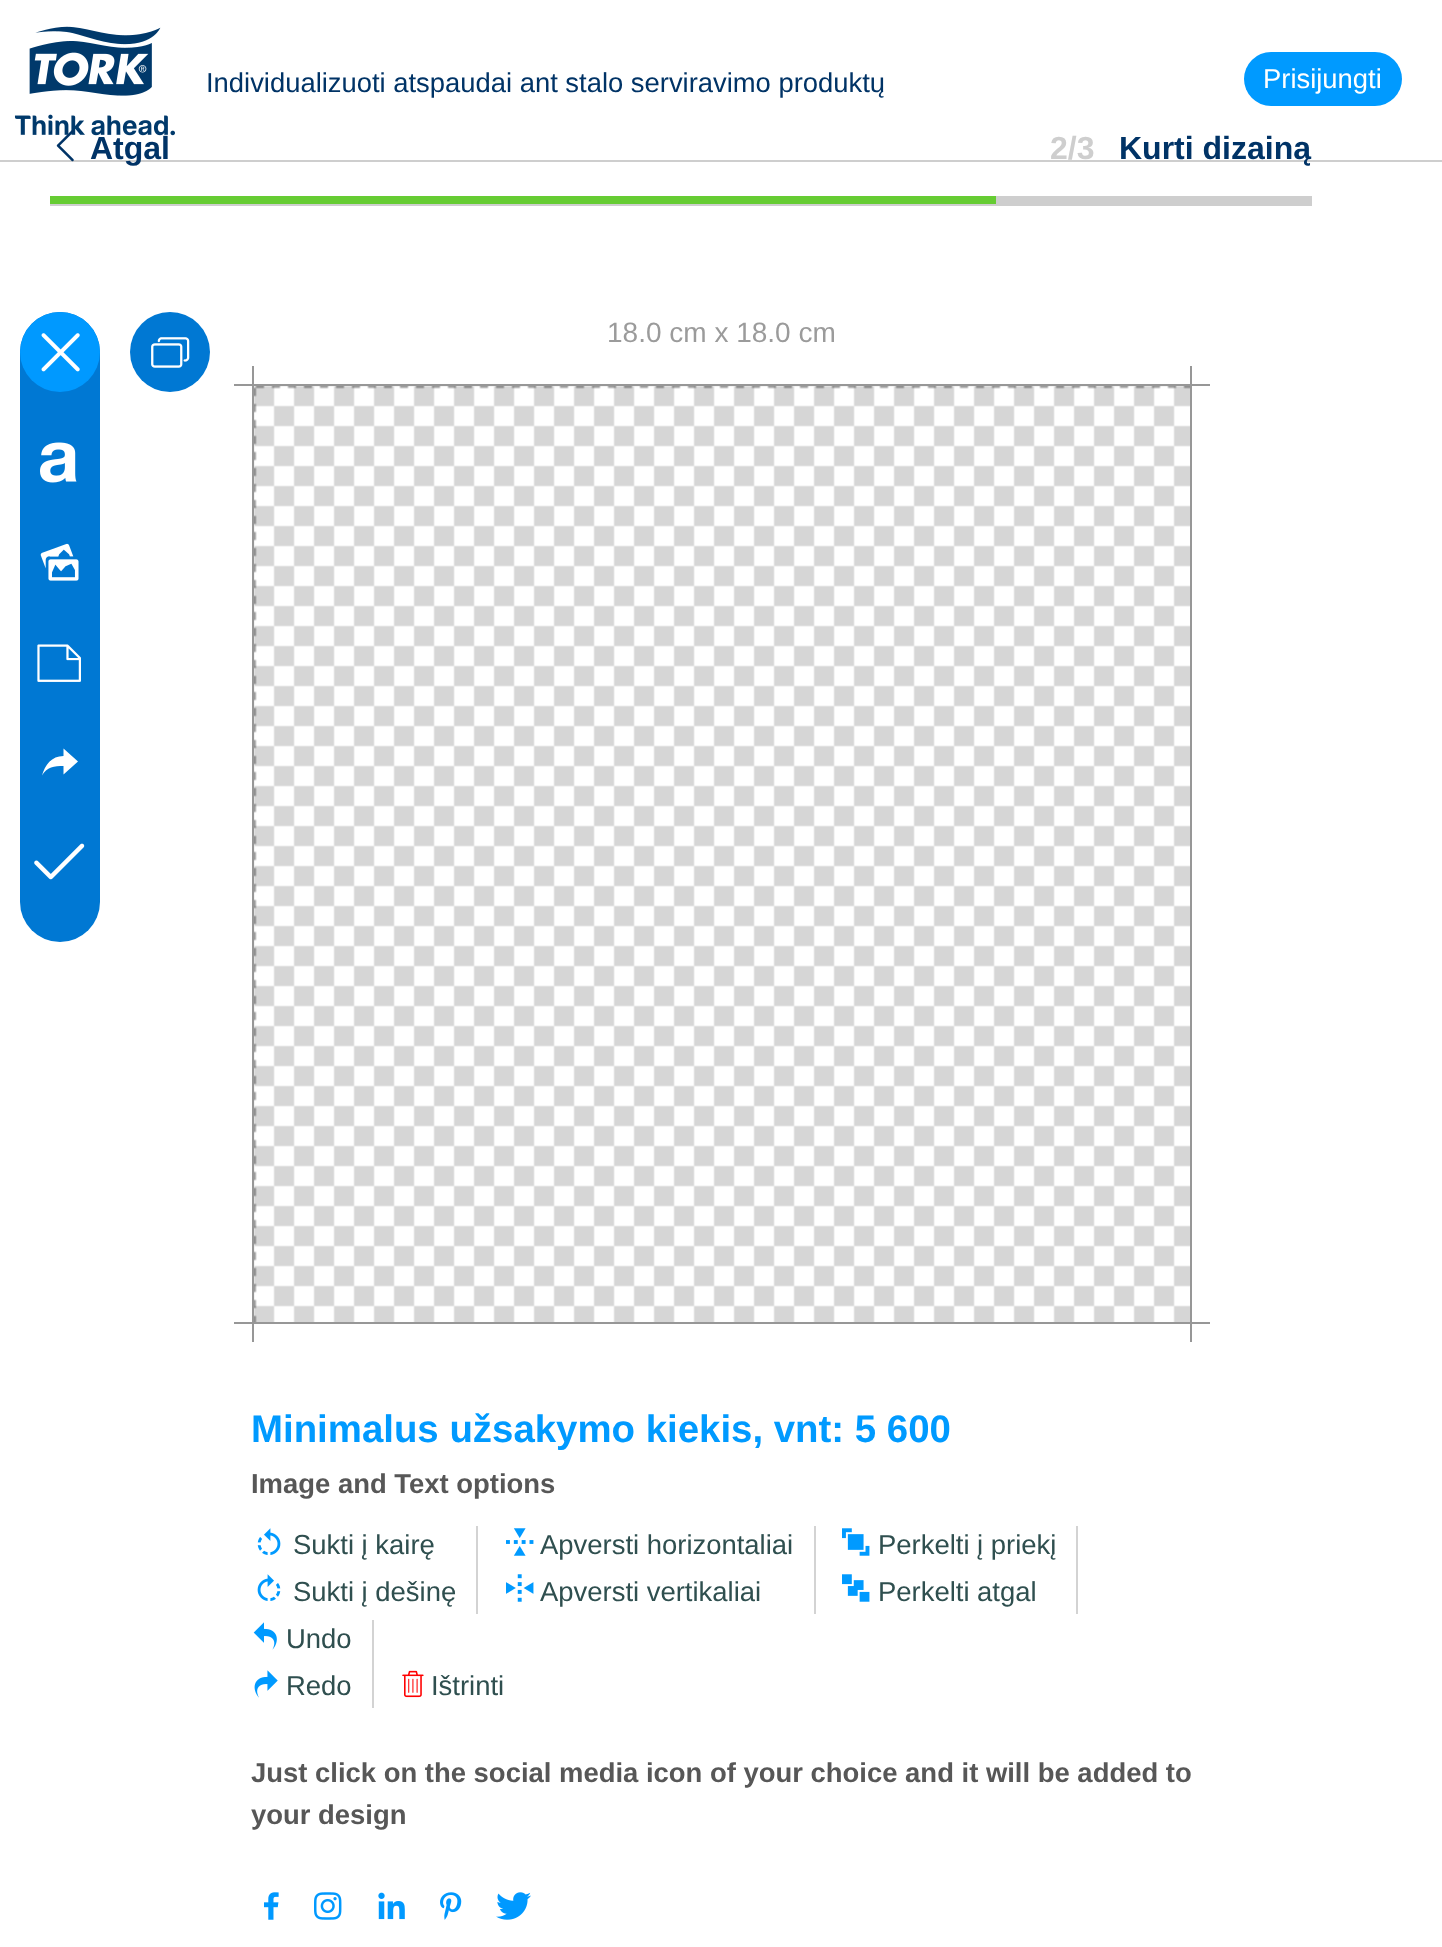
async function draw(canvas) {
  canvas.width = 1442;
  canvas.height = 1947;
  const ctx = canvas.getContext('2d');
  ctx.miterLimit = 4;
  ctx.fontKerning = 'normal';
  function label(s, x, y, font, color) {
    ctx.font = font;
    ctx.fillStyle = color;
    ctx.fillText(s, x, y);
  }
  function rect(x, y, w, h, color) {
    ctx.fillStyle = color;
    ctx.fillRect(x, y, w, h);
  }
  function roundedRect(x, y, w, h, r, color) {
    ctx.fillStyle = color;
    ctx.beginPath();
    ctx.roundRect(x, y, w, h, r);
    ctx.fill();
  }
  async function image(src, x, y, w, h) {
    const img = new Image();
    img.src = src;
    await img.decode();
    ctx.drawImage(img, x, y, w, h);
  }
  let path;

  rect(0, 0, 1442, 1947, '#fff');
  rect(0, 160, 1442, 2, '#cecece');
  await image('assets/img1.png', 14, 26, 161, 110);
  label('Individualizuoti atspaudai ant stalo serviravimo produktų', 206, 92, '27.4px Liberation Sans', '#036');
  roundedRect(1244, 52, 158, 54, 27, '#009aff');
  label('Prisijungti', 1263, 88, '27.4px Liberation Sans', '#fff');
  rect(50, 204, 1262, 2, '#cecece');
  await image('assets/img2.png', 56, 130, 18, 32);
  label('Atgal', 90, 159, 'bold 32px Liberation Sans', '#036');
  label('2/3', 1050, 159, 'bold 32px Liberation Sans', '#cecece');
  label('Kurti dizainą', 1119, 159, 'bold 32px Liberation Sans', '#036');
  rect(996, 196, 316, 8, '#cecece');
  rect(50, 196, 946, 8, '#6c3');
  roundedRect(20, 312, 80, 630, 40, '#0078d3');
  ctx.fillStyle = '#09f';
  ctx.beginPath();
  ctx.arc(60, 352, 40, 0, 2 * Math.PI);
  ctx.fill();
  await image('assets/img3.png', 41, 333, 39, 39);
  await image('assets/img4.png', 40, 442, 37, 41);
  await image('assets/img5.png', 40, 543, 39, 38);
  await image('assets/img6.png', 37, 644, 44, 38);
  ctx.fillStyle = '#fff';
  path = new Path2D('M63.5 766V774.5L78 761.5L63.5 748.5V756C51.5 756 45 765 42 775.5C46.5 767 54.5 766 63.5 766Z');
  ctx.fill(path);
  await image('assets/img7.png', 34, 843, 51, 37);
  ctx.fillStyle = '#0078d3';
  ctx.beginPath();
  ctx.arc(170, 352, 40, 0, 2 * Math.PI);
  ctx.fill();
  await image('assets/img8.png', 151, 337, 39, 31);
  label('18.0 cm x 18.0 cm', 607, 342, '28px Liberation Sans', '#9b9b9b');
  ctx.strokeStyle = '#979797';
  ctx.lineWidth = 2;
  ctx.strokeRect(253, 385, 938, 938);
  rect(252, 366, 2, 20, '#979797');
  rect(234, 384, 20, 2, '#979797');
  rect(1190, 384, 20, 2, '#979797');
  rect(1190, 366, 2, 20, '#979797');
  await image('assets/img9.png', 254, 386, 936, 936);
  await image('assets/img10.png', 254, 386, 936, 936);
  await image('assets/img11.png', 254, 386, 936, 936);
  rect(234, 1322, 20, 2, '#979797');
  rect(252, 1322, 2, 20, '#979797');
  rect(1190, 1322, 20, 2, '#979797');
  rect(1190, 1322, 2, 20, '#979797');
  label('Minimalus užsakymo kiekis, vnt: 5 600', 251, 1442, 'bold 38.4px Liberation Sans', '#009aff');
  label('Image and Text options', 251, 1493, 'bold 27.45px Liberation Sans', '#575757');
  rect(476, 1526, 2, 88, '#d3d3d3');
  await image('assets/img12.png', 257, 1528, 24, 27);
  label('Sukti į kairę', 293, 1554, '27.45px Liberation Sans', '#2f4f4f');
  await image('assets/img13.png', 257, 1574, 24, 27);
  label('Sukti į dešinę', 293, 1601, '27.45px Liberation Sans', '#2f4f4f');
  rect(814, 1526, 2, 88, '#d3d3d3');
  await image('assets/img14.png', 506, 1528, 28, 28);
  label('Apversti horizontaliai', 540, 1554, '27.45px Liberation Sans', '#2f4f4f');
  await image('assets/img15.png', 506, 1574, 28, 28);
  label('Apversti vertikaliai', 540, 1601, '27.45px Liberation Sans', '#2f4f4f');
  rect(1076, 1526, 2, 88, '#d3d3d3');
  await image('assets/img16.png', 842, 1528, 28, 28);
  label('Perkelti į priekį', 878, 1554, '27.45px Liberation Sans', '#2f4f4f');
  await image('assets/img17.png', 842, 1574, 28, 28);
  label('Perkelti atgal', 878, 1601, '27.45px Liberation Sans', '#2f4f4f');
  rect(372, 1620, 2, 88, '#d3d3d3');
  await image('assets/img18.png', 253, 1622, 24, 28);
  label('Undo', 286, 1648, '27.45px Liberation Sans', '#2f4f4f');
  await image('assets/img19.png', 254, 1670, 24, 28);
  label('Redo', 286, 1695, '27.45px Liberation Sans', '#2f4f4f');
  await image('assets/img20.png', 402, 1670, 22, 28);
  label('Ištrinti', 431, 1695, '27.45px Liberation Sans', '#2f4f4f');
  label('Just click on the social media icon of your choice and it will be added to', 251, 1782, 'bold 27.45px Liberation Sans', '#575757');
  label('your design', 251, 1824, 'bold 27.45px Liberation Sans', '#575757');
  await image('assets/img21.png', 264, 1892, 15, 28);
  await image('assets/img22.png', 314, 1892, 28, 28);
  await image('assets/img23.png', 378, 1892, 27, 28);
  await image('assets/img24.png', 440, 1892, 22, 28);
  await image('assets/img25.png', 496, 1892, 35, 28);
}

draw(document.querySelector('canvas'));
